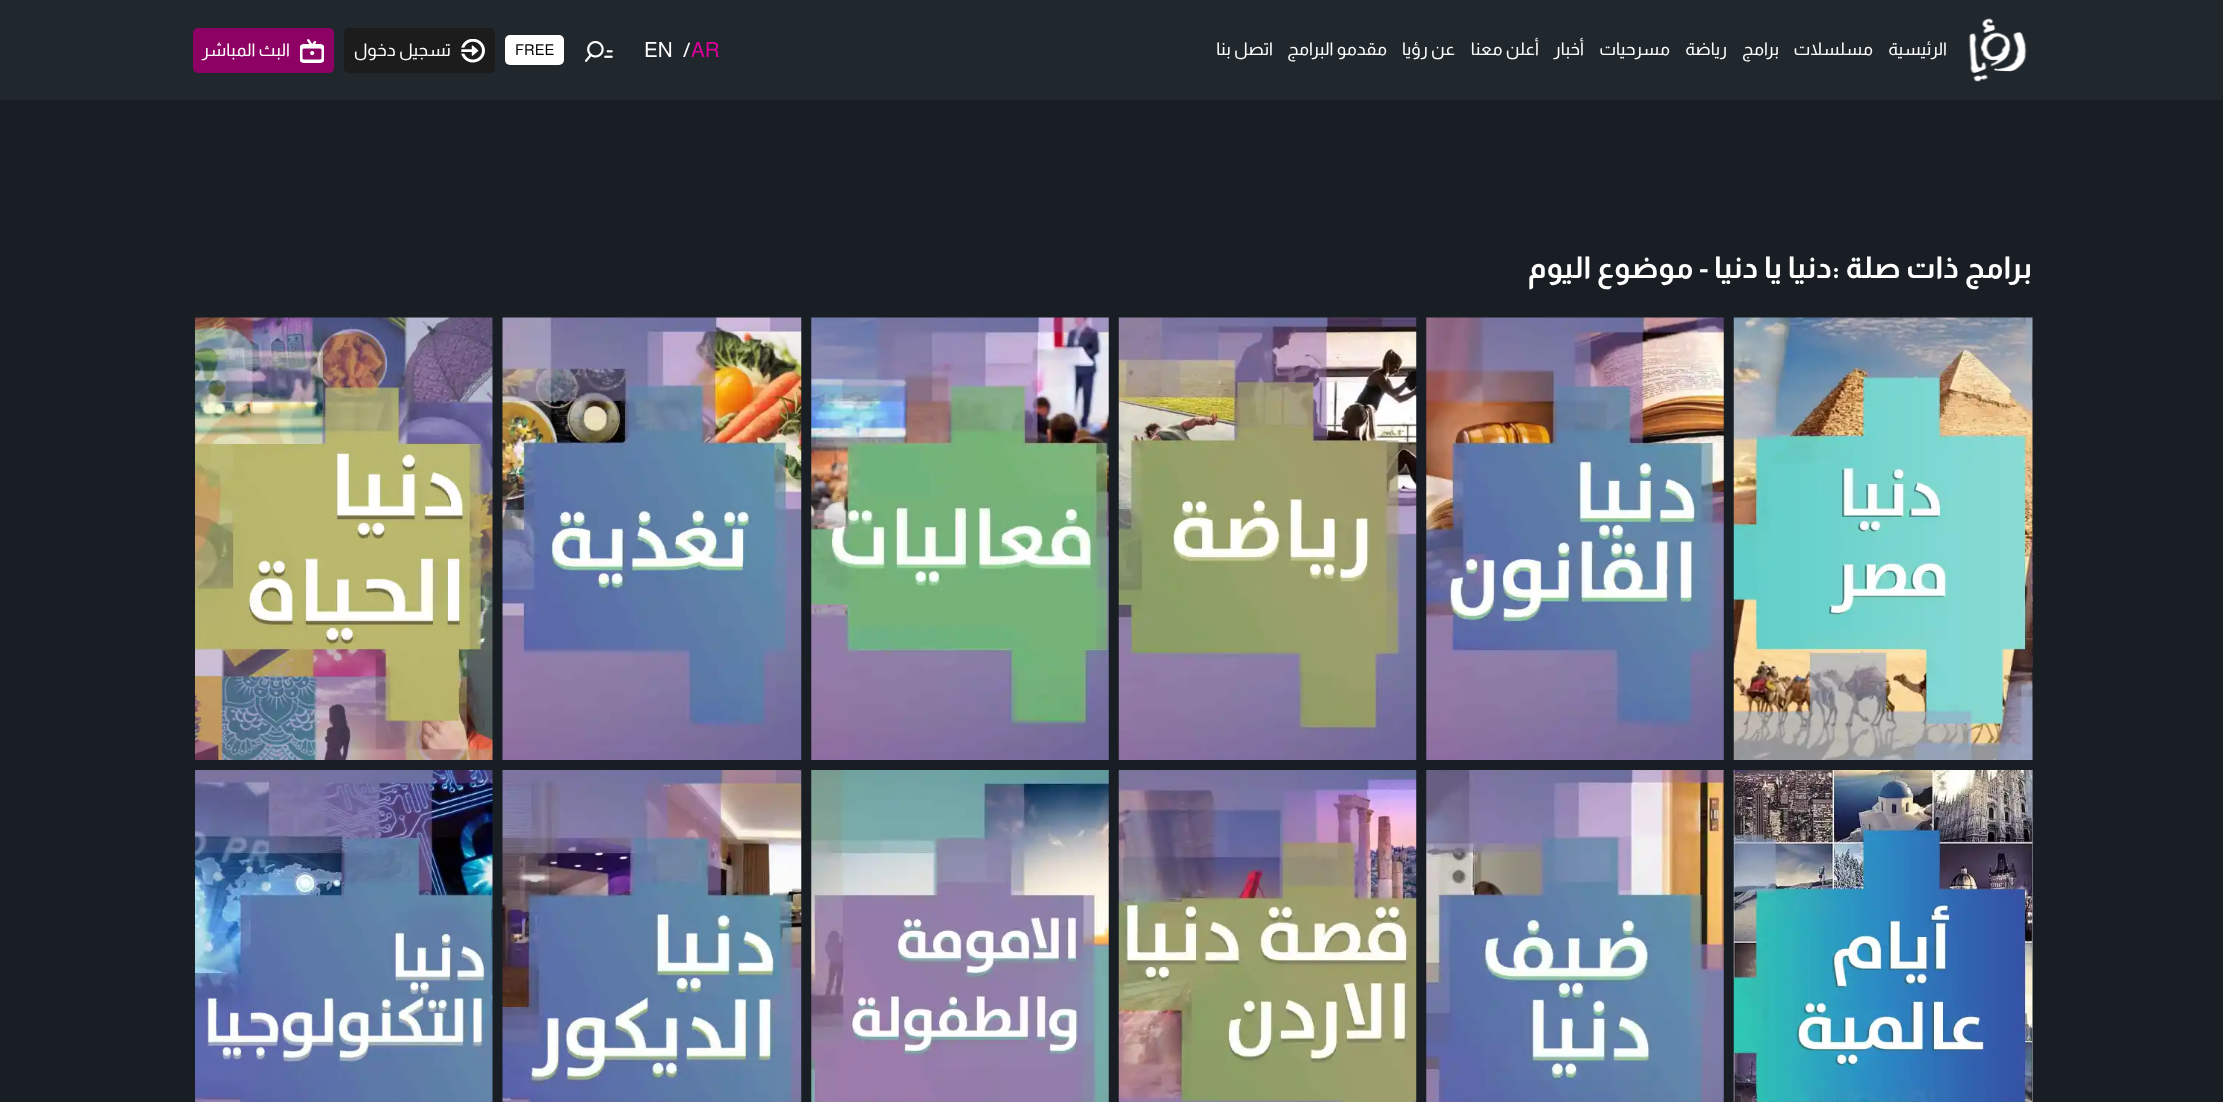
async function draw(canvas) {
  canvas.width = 2223;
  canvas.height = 1102;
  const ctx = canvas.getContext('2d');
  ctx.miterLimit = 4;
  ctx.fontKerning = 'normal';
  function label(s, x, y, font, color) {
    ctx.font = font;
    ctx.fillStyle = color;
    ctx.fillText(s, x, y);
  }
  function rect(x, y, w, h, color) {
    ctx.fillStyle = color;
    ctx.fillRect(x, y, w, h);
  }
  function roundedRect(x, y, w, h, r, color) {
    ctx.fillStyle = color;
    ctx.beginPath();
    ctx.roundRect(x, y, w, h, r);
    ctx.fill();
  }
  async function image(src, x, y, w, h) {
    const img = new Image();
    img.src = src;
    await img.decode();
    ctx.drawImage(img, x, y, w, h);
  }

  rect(0, 0, 2223, 1102, '#181e24');
  rect(0, 0, 2223, 100, '#20272d');
  await image('assets/img1.png', 1968, 18, 59, 64);
  ctx.direction = 'rtl';
  label('الرئيسية', 1947, 55, '17.5px Almarai', '#fff');
  label('مسلسلات', 1873, 55, '17.5px Almarai', '#fff');
  label('برامج', 1779, 55, '17.5px Almarai', '#fff');
  label('رياضة', 1727, 55, '17.5px Almarai', '#fff');
  label('مسرحيات', 1670, 55, '17.5px Almarai', '#fff');
  label('أخبار', 1584, 55, '17.5px Almarai', '#fff');
  label('أعلن معنا', 1539, 55, '17.5px Almarai', '#fff');
  label('عن رؤيا', 1455, 55, '17.5px Almarai', '#fff');
  label('مقدمو البرامج', 1387, 55, '17.5px Almarai', '#fff');
  label('اتصل بنا', 1273, 55, '17.5px Almarai', '#fff');
  ctx.direction = 'ltr';
  label('AR', 691, 57, '21px Almarai', '#dd009c');
  label('/', 683, 57, '21px Almarai', '#fff');
  label('EN', 644, 57, '21px Almarai', '#fff');
  await image('assets/img2.png', 584, 41, 29, 21);
  roundedRect(505, 35, 59, 30, 5, '#fff');
  label('FREE', 515, 55, '15px Almarai', '#000');
  roundedRect(344, 28, 151, 45, 5, '#1c1c1c');
  await image('assets/img3.png', 461, 39, 24, 24);
  ctx.direction = 'rtl';
  label('تسجيل دخول', 451, 56, '17.5px Almarai', '#fff');
  roundedRect(193, 28, 141, 45, 5, '#8d0164');
  await image('assets/img4.png', 300, 39, 24, 24);
  label('البث المباشر', 290, 56, '17.5px Almarai', '#fff');
  label('برامج ذات صلة', 2032, 278, 'bold 30px Almarai', '#fff');
  ctx.direction = 'ltr';
  label(':', 1832, 278, 'bold 30px Almarai', '#fff');
  ctx.direction = 'rtl';
  label('دنيا يا دنيا - موضوع اليوم', 1832, 278, 'bold 30px Almarai', '#fff');
  await image('assets/img5.png', 1733, 317, 300, 443);
  await image('assets/img6.png', 1426, 317, 298, 443);
  await image('assets/img7.png', 1118, 317, 299, 443);
  await image('assets/img8.png', 811, 317, 298, 443);
  await image('assets/img9.png', 502, 317, 300, 443);
  await image('assets/img10.png', 195, 317, 298, 443);
  await image('assets/img11.png', 1733, 770, 300, 332);
  await image('assets/img12.png', 1426, 770, 298, 332);
  await image('assets/img13.png', 1118, 770, 299, 332);
  await image('assets/img14.png', 811, 770, 298, 332);
  await image('assets/img15.png', 502, 770, 300, 332);
  await image('assets/img16.png', 195, 770, 298, 332);
}

draw(document.querySelector('canvas'));
